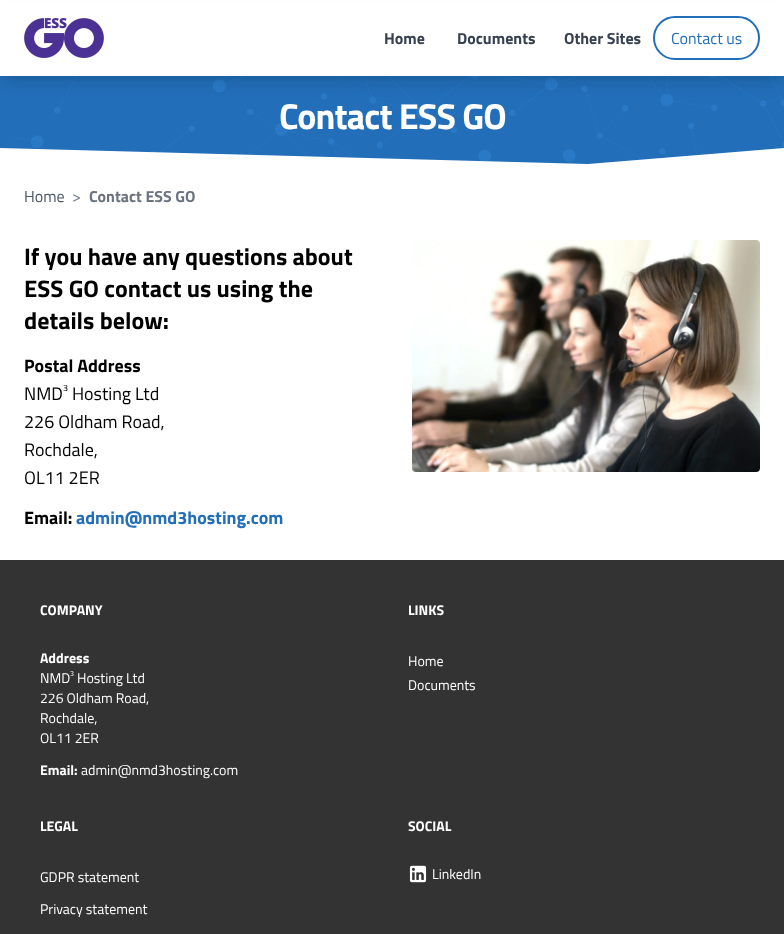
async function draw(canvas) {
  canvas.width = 784;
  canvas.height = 934;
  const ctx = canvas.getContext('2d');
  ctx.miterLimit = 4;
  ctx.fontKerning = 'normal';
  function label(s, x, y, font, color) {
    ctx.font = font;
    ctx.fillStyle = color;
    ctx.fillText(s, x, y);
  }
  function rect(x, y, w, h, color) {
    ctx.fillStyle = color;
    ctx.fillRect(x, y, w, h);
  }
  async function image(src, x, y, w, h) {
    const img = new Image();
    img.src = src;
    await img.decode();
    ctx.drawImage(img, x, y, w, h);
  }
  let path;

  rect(0, 0, 784, 934, '#fff');
  rect(0, 76, 784, 88, '#226eb8');
  await image('assets/img2.png', 4, 76, 780, 88);
  ctx.fillStyle = '#0000001a';
  ctx.filter = 'blur(3px)';
  ctx.beginPath();
  ctx.rect(4, 8, 776, 68);
  ctx.fill();
  ctx.filter = 'none';
  ctx.filter = 'blur(7.5px)';
  ctx.beginPath();
  ctx.rect(3, 13, 778, 70);
  ctx.fill();
  ctx.filter = 'none';
  rect(0, 2, 784, 74, '#fff');
  await image('assets/img1.png', 24, 18, 80, 40);
  label('Home', 384, 44, 'bold 16px Titillium Web', '#374151');
  label('Documents', 457, 44, 'bold 16px Titillium Web', '#374151');
  label('Other Sites', 564, 44, 'bold 16px Titillium Web', '#374151');
  ctx.beginPath();
  ctx.roundRect(654, 17, 105, 42, 21);
  ctx.strokeStyle = '#226eb8';
  ctx.lineWidth = 2;
  ctx.stroke();
  label('Contact us', 671, 44, '16px Titillium Web', '#226eb8');
  ctx.letterSpacing = '-0.9px';
  label('Contact ESS GO', 279, 129, 'bold 36px Titillium Web', '#fff');
  path = new Path2D('M588 164L0 148V168H784V148Z');
  ctx.fill(path);
  ctx.letterSpacing = '0px';
  label('Home', 24, 202, '16px Titillium Web', '#4b5563');
  label('>', 72, 202, '16px Titillium Web', '#6b7280');
  label('Contact ESS GO', 89, 202, 'bold 16px Titillium Web', '#6b7280');
  label('If you have any questions about', 24, 265, 'bold 24px Titillium Web', '#000');
  label('ESS GO contact us using the', 24, 297, 'bold 24px Titillium Web', '#000');
  label('details below:', 24, 329, 'bold 24px Titillium Web', '#000');
  label('Postal Address', 24, 372, 'bold 18px Titillium Web', '#000');
  label('NMD', 24, 400, '18px Titillium Web', '#000');
  label('3', 63, 391, '9px Titillium Web', '#000');
  label('Hosting Ltd', 72, 400, '18px Titillium Web', '#000');
  label('226 Oldham Road,', 24, 428, '18px Titillium Web', '#000');
  label('Rochdale,', 24, 456, '18px Titillium Web', '#000');
  label('OL11 2ER', 24, 484, '18px Titillium Web', '#000');
  label('Email:', 24, 524, 'bold 18px Titillium Web', '#000');
  label('admin@nmd3hosting.com', 76, 524, 'bold 18px Titillium Web', '#226eb8');
  await image('assets/img3.png', 412, 240, 348, 232);
  rect(0, 560, 784, 374, '#333');
  label('COMPANY', 40, 615, 'bold 14px Titillium Web', '#fff');
  label('Address', 40, 663, 'bold 14px Titillium Web', '#fff');
  label('NMD', 40, 683, '14px Titillium Web', '#fff');
  label('3', 70, 676, '7px Titillium Web', '#fff');
  label('Hosting Ltd', 77, 683, '14px Titillium Web', '#fff');
  label('226 Oldham Road,', 40, 703, '14px Titillium Web', '#fff');
  label('Rochdale,', 40, 723, '14px Titillium Web', '#fff');
  label('OL11 2ER', 40, 743, '14px Titillium Web', '#fff');
  label('Email:', 40, 775, 'bold 14px Titillium Web', '#fff');
  label('admin@nmd3hosting.com', 81, 775, '14px Titillium Web', '#fff');
  label('LINKS', 408, 615, 'bold 14px Titillium Web', '#fff');
  label('Home', 408, 666, '14px Titillium Web', '#fff');
  label('Documents', 408, 690, '14px Titillium Web', '#fff');
  label('LEGAL', 40, 831, 'bold 14px Titillium Web', '#fff');
  label('GDPR statement', 40, 882, '14px Titillium Web', '#fff');
  label('Privacy statement', 40, 914, '14px Titillium Web', '#fff');
  label('SOCIAL', 408, 831, 'bold 14px Titillium Web', '#fff');
  await image('assets/img4.png', 409, 865, 18, 18);
  label('LinkedIn', 432, 879, '14px Titillium Web', '#fff');
}

draw(document.querySelector('canvas'));
